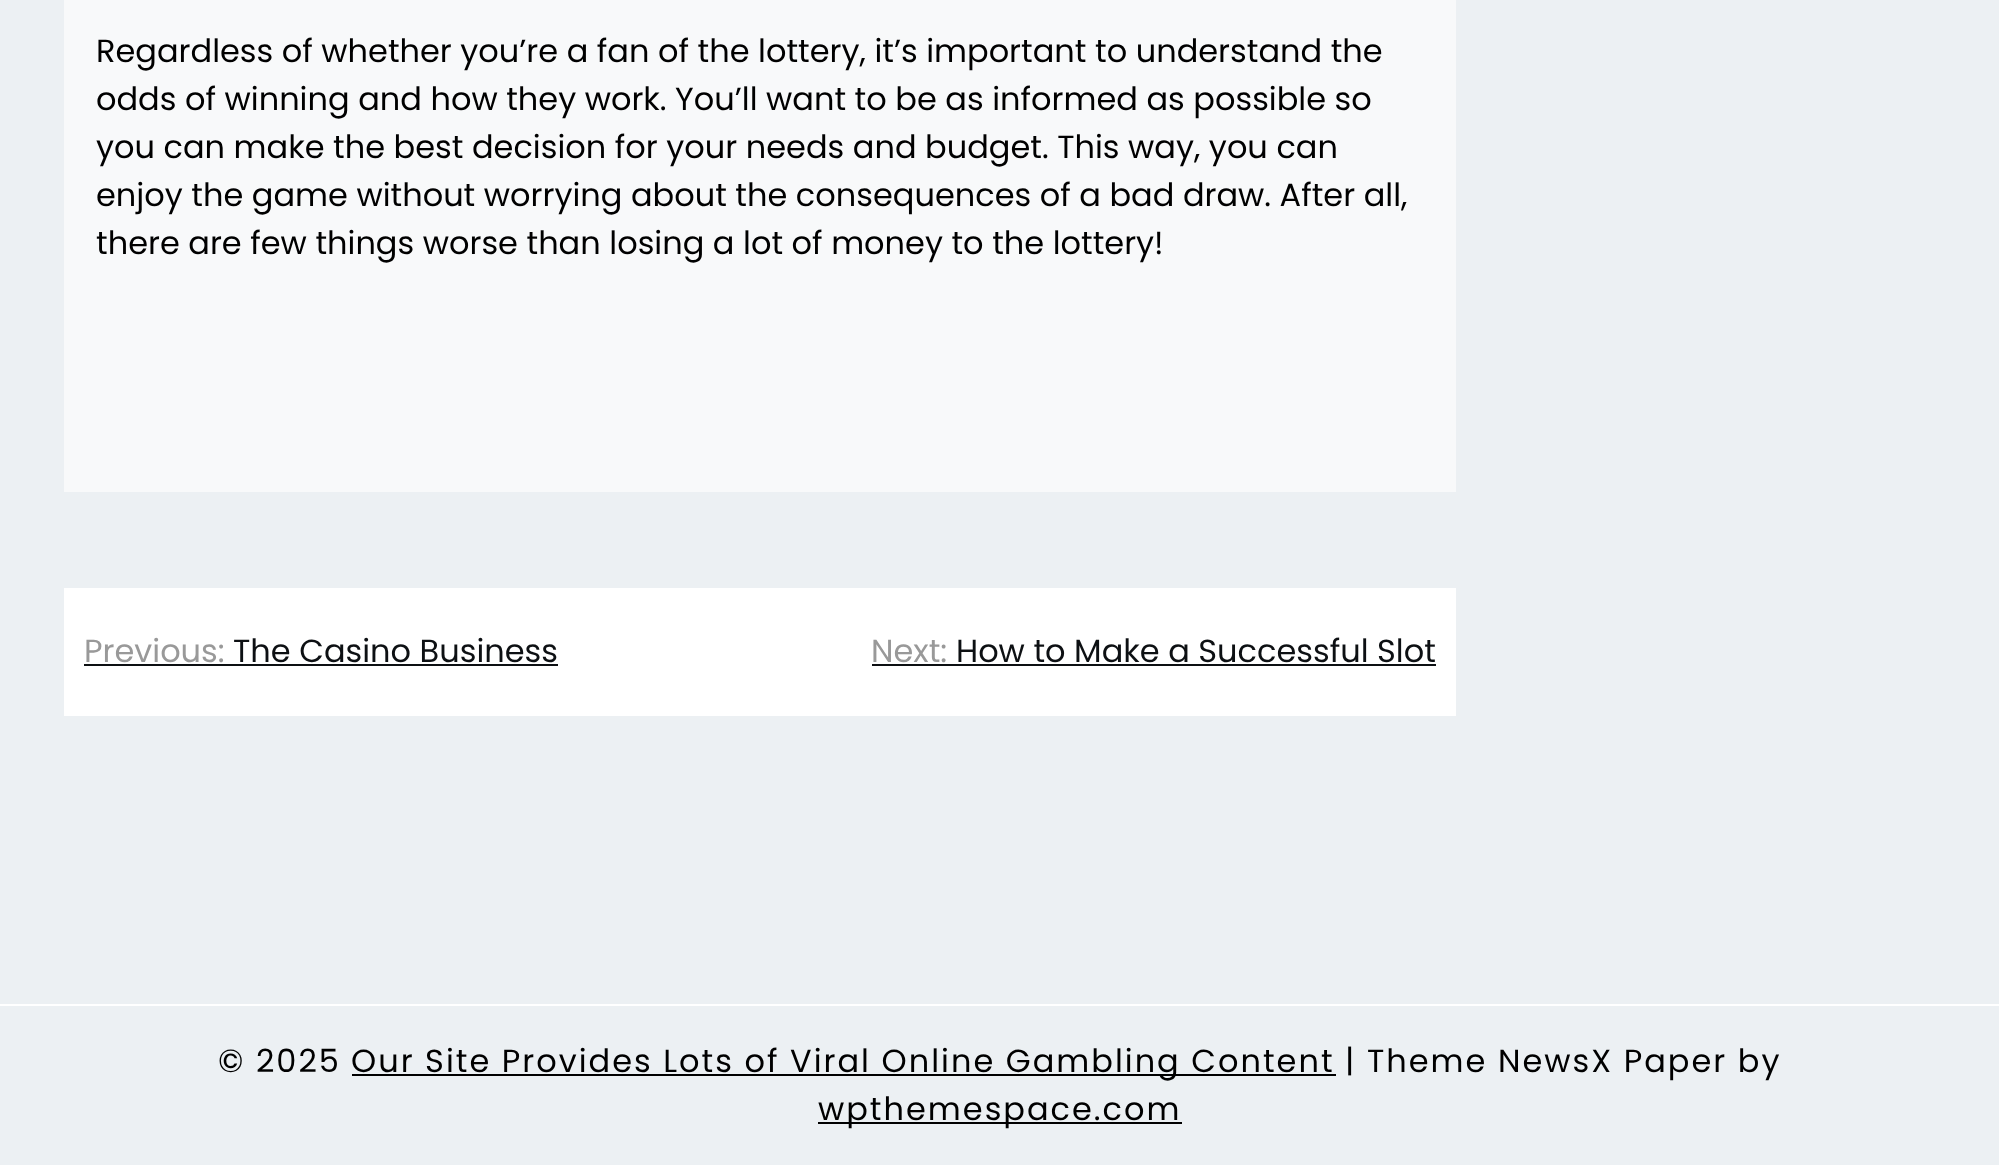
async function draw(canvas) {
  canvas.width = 1999;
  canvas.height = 1165;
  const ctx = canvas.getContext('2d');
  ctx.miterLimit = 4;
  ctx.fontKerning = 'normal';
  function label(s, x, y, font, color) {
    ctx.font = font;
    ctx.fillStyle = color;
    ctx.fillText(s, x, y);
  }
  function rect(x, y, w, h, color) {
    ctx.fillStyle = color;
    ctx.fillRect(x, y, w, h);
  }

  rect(0, 0, 1999, 1165, '#ecf0f3');
  rect(64, 0, 1392, 492, '#f8f9fa');
  label('Regardless of whether you’re a fan of the lottery, it’s important to understand the', 96, 62, '32px Poppins', '#000');
  label('odds of winning and how they work. You’ll want to be as informed as possible so', 96, 110, '32px Poppins', '#000');
  label('you can make the best decision for your needs and budget. This way, you can', 96, 158, '32px Poppins', '#000');
  label('enjoy the game without worrying about the consequences of a bad draw. After all,', 96, 206, '32px Poppins', '#000');
  label('there are few things worse than losing a lot of money to the lottery!', 96, 254, '32px Poppins', '#000');
  rect(64, 588, 1392, 128, '#fff');
  label('Previous:', 84, 662, '32px Poppins', '#999');
  rect(84, 664, 474, 2, '#0d1013');
  label('The Casino Business', 233, 662, '32px Poppins', '#0d1013');
  label('Next:', 871, 662, '32px Poppins', '#999');
  rect(872, 664, 564, 2, '#0d1013');
  label('How to Make a Successful Slot', 956, 662, '32px Poppins', '#0d1013');
  rect(0, 1004, 1999, 2, '#fff');
  ctx.letterSpacing = '2px';
  label('© 2025', 218, 1072, '32px Poppins', '#000');
  rect(352, 1074, 984, 2, '#000');
  label('Our Site Provides Lots of Viral Online Gambling Content | Theme NewsX Paper by', 351, 1072, '32px Poppins', '#000');
  rect(818, 1122, 364, 2, '#000');
  label('wpthemespace.com', 818, 1120, '32px Poppins', '#000');
}

draw(document.querySelector('canvas'));
